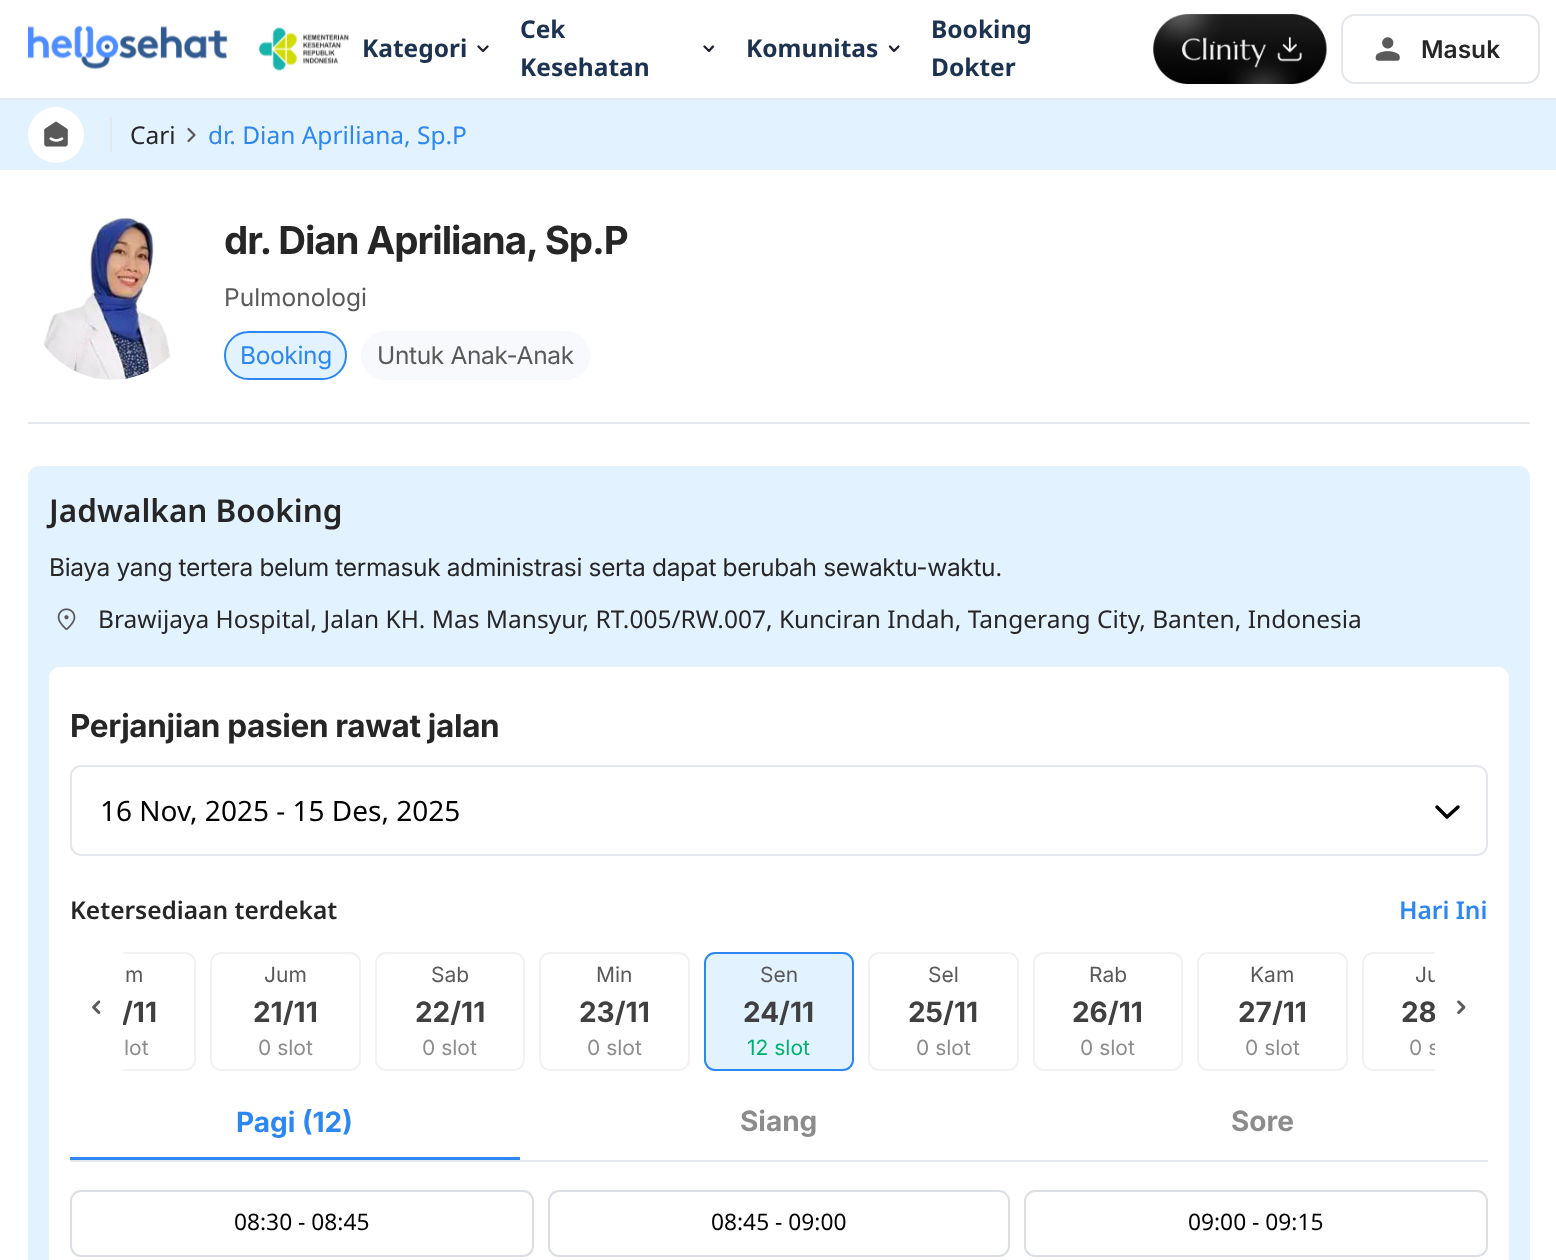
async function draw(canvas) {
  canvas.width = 1556;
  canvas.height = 1260;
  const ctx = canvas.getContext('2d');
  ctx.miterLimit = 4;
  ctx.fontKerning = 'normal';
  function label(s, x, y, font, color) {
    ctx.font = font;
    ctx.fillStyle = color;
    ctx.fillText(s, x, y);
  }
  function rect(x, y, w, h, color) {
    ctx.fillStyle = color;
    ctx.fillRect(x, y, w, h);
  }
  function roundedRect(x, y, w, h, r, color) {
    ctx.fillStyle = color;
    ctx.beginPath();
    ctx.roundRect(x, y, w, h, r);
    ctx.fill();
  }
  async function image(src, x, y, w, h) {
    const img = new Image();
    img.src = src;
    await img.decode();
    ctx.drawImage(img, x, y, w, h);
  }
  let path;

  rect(0, 0, 1556, 1260, '#fff');
  rect(0, 98, 1556, 2, '#e4e8ec');
  await image('assets/img1.png', 28, 25, 200, 44);
  await image('assets/img2.png', 258, 27, 91, 44);
  label('Kategori', 362, 57, 'bold 24.5px Noto Sans', '#1b3250');
  path = new Path2D('M487.5 46.5L483 51L478.5 46.5');
  ctx.strokeStyle = '#202135';
  ctx.lineWidth = 2.3;
  ctx.lineCap = 'round';
  ctx.lineJoin = 'round';
  ctx.stroke(path);
  label('Cek', 520, 38, 'bold 24.5px Noto Sans', '#1b3250');
  path = new Path2D('M713 46.5L709 51L704.5 46.5');
  ctx.stroke(path);
  label('Kesehatan', 520, 76, 'bold 24.5px Noto Sans', '#1b3250');
  label('Komunitas', 746, 57, 'bold 24.5px Noto Sans', '#1b3250');
  path = new Path2D('M898.5 46.5L894 51L890 46.5');
  ctx.stroke(path);
  label('Booking', 931, 38, 'bold 24.5px Noto Sans', '#1b3250');
  label('Dokter', 931, 76, 'bold 24.5px Noto Sans', '#1b3250');
  await image('assets/img3.png', 1153, 14, 174, 70);
  ctx.beginPath();
  ctx.roundRect(1342, 15, 197, 68, 13);
  ctx.strokeStyle = '#e4e8ec';
  ctx.lineWidth = 2;
  ctx.lineJoin = 'miter';
  ctx.stroke();
  await image('assets/img4.png', 1375, 37, 25, 24);
  label('Masuk', 1421, 58, '600 24.5px Inter', '#262626');
  rect(0, 100, 1556, 70, '#e3f2ff');
  ctx.fillStyle = '#fff';
  ctx.beginPath();
  ctx.arc(56, 135, 28, 0, 2 * Math.PI);
  ctx.fill();
  await image('assets/img5.png', 44, 121, 24, 26);
  rect(110, 117, 2, 35, '#e4e8ec');
  label('Cari', 130, 144, '24.5px Noto Sans', '#262626');
  path = new Path2D('M188.5 129L194.5 135L188.5 141');
  ctx.strokeStyle = '#595959';
  ctx.lineWidth = 2.2;
  ctx.lineJoin = 'round';
  ctx.stroke(path);
  label('dr. Dian Apriliana, Sp.P', 208, 144, '24.5px Noto Sans', '#2d87f3');
  rect(28, 422, 1502, 2, '#e4e8ec');
  await image('assets/img6.png', 43, 217, 127, 163);
  ctx.letterSpacing = '-1.05px';
  label('dr. Dian Apriliana, Sp.P', 224, 254, 'bold 38.5px Inter', '#262626');
  ctx.letterSpacing = '0px';
  label('Pulmonologi', 224, 306, '24.5px Inter', '#595959');
  ctx.fillStyle = '#e3f2ff';
  ctx.beginPath();
  ctx.roundRect(225, 332, 121, 47, 23.5);
  ctx.fill();
  ctx.strokeStyle = '#2d87f3';
  ctx.lineWidth = 2;
  ctx.lineJoin = 'miter';
  ctx.stroke();
  ctx.letterSpacing = '-0.35px';
  label('Booking', 240, 364, '24.5px Inter', '#2d87f3');
  roundedRect(361, 331, 229, 49, 24.5, '#f8f9fc');
  label('Untuk Anak-Anak', 377, 364, '24.5px Inter', '#595959');
  roundedRect(28, 466, 1502, 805, 11, '#e3f2ff');
  ctx.letterSpacing = '0px';
  label('Jadwalkan Booking', 49, 522, '600 31.5px Noto Sans', '#262626');
  ctx.letterSpacing = '-0.35px';
  label('Biaya yang tertera belum termasuk administrasi serta dapat berubah sewaktu-waktu.', 49, 576, '24.5px Inter', '#262626');
  await image('assets/img7.png', 57, 608, 19, 22);
  ctx.letterSpacing = '0px';
  label('Brawijaya Hospital, Jalan KH. Mas Mansyur, RT.005/RW.007, Kunciran Indah, Tangerang City, Banten, Indonesia', 98, 628, '24.5px Noto Sans', '#262626');
  roundedRect(49, 667, 1460, 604, 11, '#fff');
  ctx.letterSpacing = '-0.35px';
  label('Perjanjian pasien rawat jalan', 70, 737, 'bold 31.5px Inter', '#262626');
  ctx.beginPath();
  ctx.roundRect(71, 766, 1416, 89, 10);
  ctx.strokeStyle = '#e4e8ec';
  ctx.stroke();
  ctx.letterSpacing = '0px';
  label('16 Nov, 2025 - 15 Des, 2025', 100, 821, '28px Noto Sans', '#000');
  path = new Path2D('M1437 807L1447 817L1458 807');
  ctx.strokeStyle = '#000';
  ctx.lineWidth = 3.5;
  ctx.lineJoin = 'round';
  ctx.stroke(path);
  label('Ketersediaan terdekat', 70, 919, '600 24.5px Noto Sans', '#262626');
  label('Hari Ini', 1399, 919, '600 24.5px Noto Sans', '#2d87f3');
  ctx.save();
  ctx.beginPath();
  ctx.rect(70, 938, 1418, 147);
  ctx.clip();
  ctx.beginPath();
  ctx.roundRect(47, 953, 148, 117, 10);
  ctx.strokeStyle = '#f1f2f4';
  ctx.lineWidth = 2;
  ctx.lineJoin = 'miter';
  ctx.stroke();
  ctx.restore();
  label('/11', 122, 1022, 'bold 28px Inter', '#404040');
  rect(70, 952, 53, 119, '#fff');
  await image('assets/img8.png', 92, 1000, 9, 14);
  label('m', 125, 982, '21px Inter', '#595959');
  label('lot', 124, 1055, '21px Inter', '#8c8c8c');
  ctx.beginPath();
  ctx.roundRect(211, 953, 149, 117, 10);
  ctx.strokeStyle = '#f1f2f4';
  ctx.lineWidth = 2;
  ctx.lineJoin = 'miter';
  ctx.stroke();
  label('Jum', 264, 982, '21px Inter', '#595959');
  label('21/11', 253, 1022, 'bold 28px Inter', '#404040');
  label('0 slot', 258, 1055, '21px Inter', '#8c8c8c');
  ctx.beginPath();
  ctx.roundRect(376, 953, 148, 117, 10);
  ctx.stroke();
  label('Sab', 431, 982, '21px Inter', '#595959');
  label('22/11', 415, 1022, 'bold 28px Inter', '#404040');
  label('0 slot', 422, 1055, '21px Inter', '#8c8c8c');
  ctx.beginPath();
  ctx.roundRect(540, 953, 149, 117, 10);
  ctx.stroke();
  label('Min', 596, 982, '21px Inter', '#595959');
  label('23/11', 579, 1022, 'bold 28px Inter', '#404040');
  label('0 slot', 587, 1055, '21px Inter', '#8c8c8c');
  ctx.fillStyle = '#e3f2ff';
  ctx.beginPath();
  ctx.roundRect(705, 953, 148, 117, 10);
  ctx.fill();
  ctx.strokeStyle = '#2d87f3';
  ctx.stroke();
  label('Sen', 760, 982, '21px Inter', '#595959');
  label('24/11', 743, 1022, 'bold 28px Inter', '#404040');
  label('12 slot', 747, 1055, '21px Inter', '#00b16a');
  ctx.beginPath();
  ctx.roundRect(869, 953, 149, 117, 10);
  ctx.strokeStyle = '#f1f2f4';
  ctx.stroke();
  label('Sel', 928, 982, '21px Inter', '#595959');
  label('25/11', 908, 1022, 'bold 28px Inter', '#404040');
  label('0 slot', 916, 1055, '21px Inter', '#8c8c8c');
  ctx.beginPath();
  ctx.roundRect(1034, 953, 148, 117, 10);
  ctx.stroke();
  label('Rab', 1089, 982, '21px Inter', '#595959');
  label('26/11', 1072, 1022, 'bold 28px Inter', '#404040');
  label('0 slot', 1080, 1055, '21px Inter', '#8c8c8c');
  ctx.beginPath();
  ctx.roundRect(1198, 953, 149, 117, 10);
  ctx.stroke();
  label('Kam', 1250, 982, '21px Inter', '#595959');
  label('27/11', 1238, 1022, 'bold 28px Inter', '#404040');
  label('0 slot', 1245, 1055, '21px Inter', '#8c8c8c');
  ctx.save();
  ctx.beginPath();
  ctx.rect(70, 938, 1418, 147);
  ctx.clip();
  ctx.beginPath();
  ctx.roundRect(1363, 953, 148, 117, 10);
  ctx.stroke();
  ctx.restore();
  label('Ju', 1415, 982, '21px Inter', '#595959');
  label('28', 1401, 1022, 'bold 28px Inter', '#404040');
  label('0 s', 1409, 1055, '21px Inter', '#8c8c8c');
  rect(1435, 952, 53, 119, '#fff');
  await image('assets/img9.png', 1457, 1000, 9, 14);
  rect(70, 1160, 1418, 2, '#e4e8ec');
  rect(70, 1157, 450, 3, '#2d87f3');
  label('Pagi (12)', 236, 1132, 'bold 28px Inter', '#2d87f3');
  label('Siang', 740, 1131, 'bold 28px Inter', '#8c8c8c');
  label('Sore', 1231, 1131, 'bold 28px Inter', '#8c8c8c');
  ctx.beginPath();
  ctx.roundRect(71, 1191, 462, 65, 10);
  ctx.strokeStyle = '#dbdfe5';
  ctx.stroke();
  label('08:30 - 08:45', 234, 1230, '22.75px Noto Sans', '#000');
  ctx.beginPath();
  ctx.roundRect(549, 1191, 460, 65, 10);
  ctx.stroke();
  label('08:45 - 09:00', 711, 1230, '22.75px Noto Sans', '#000');
  ctx.beginPath();
  ctx.roundRect(1025, 1191, 462, 65, 10);
  ctx.stroke();
  label('09:00 - 09:15', 1188, 1230, '22.75px Noto Sans', '#000');
}

draw(document.querySelector('canvas'));
